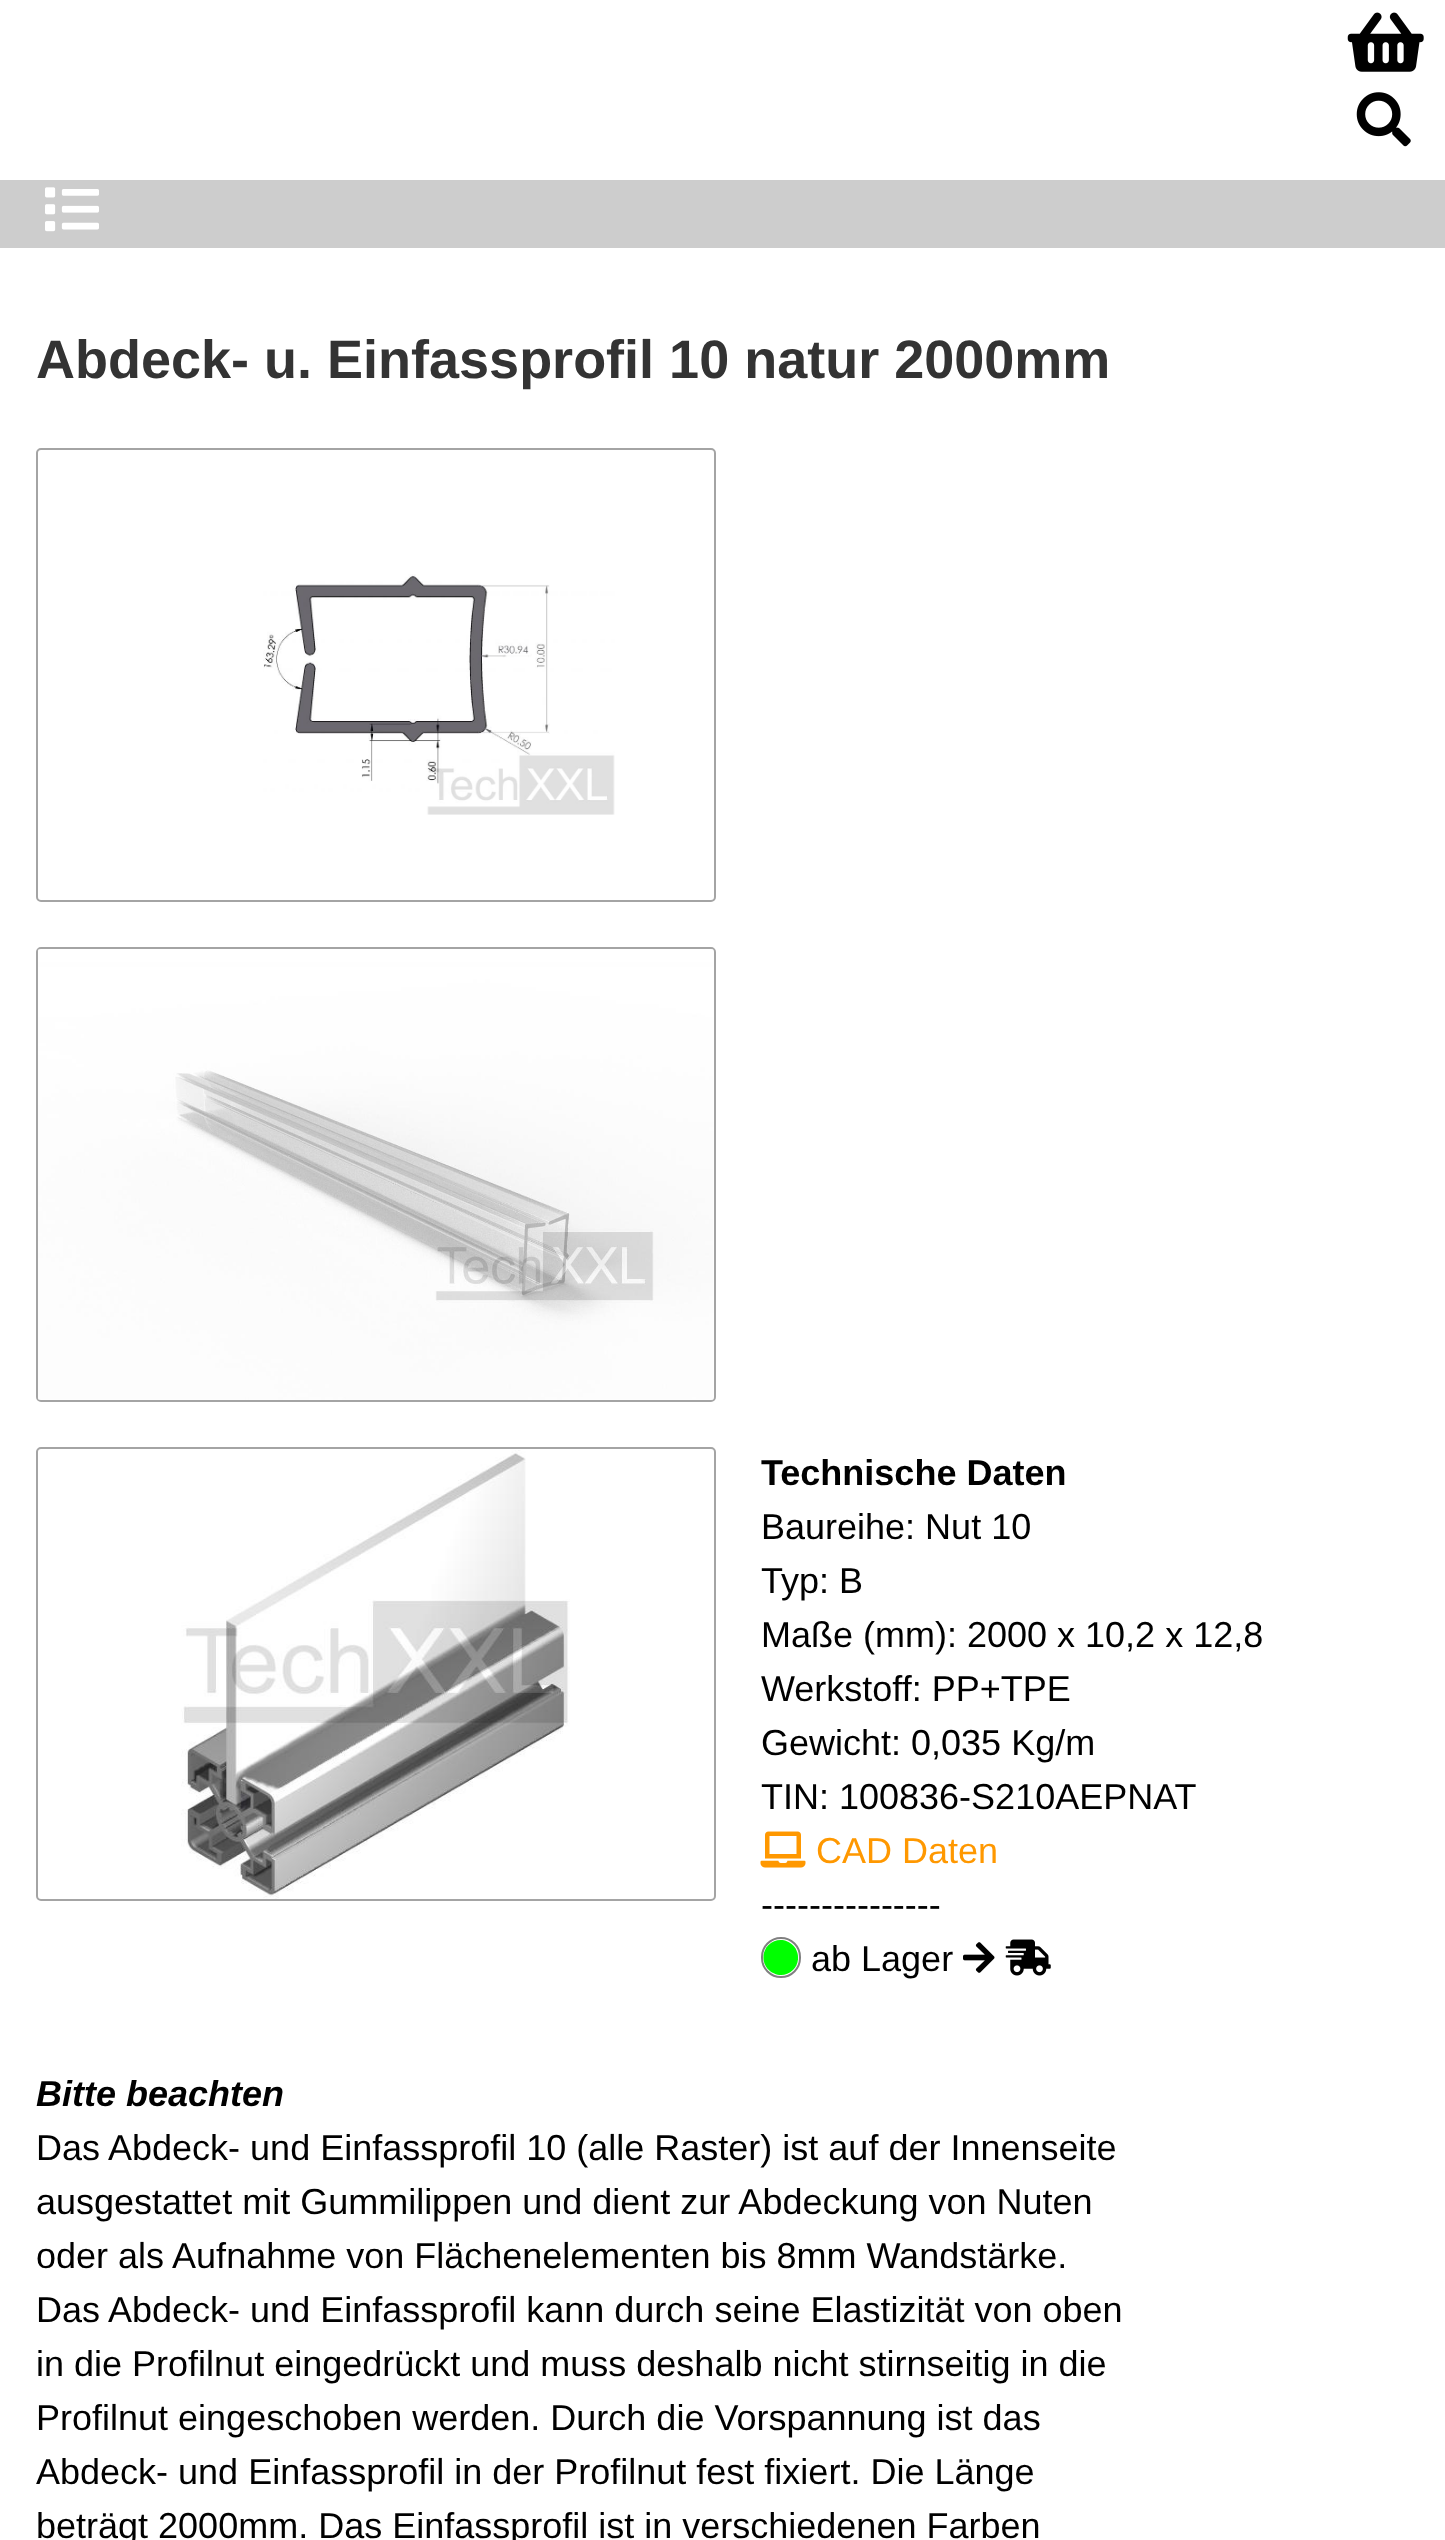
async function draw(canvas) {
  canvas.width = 1445;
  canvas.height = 2540;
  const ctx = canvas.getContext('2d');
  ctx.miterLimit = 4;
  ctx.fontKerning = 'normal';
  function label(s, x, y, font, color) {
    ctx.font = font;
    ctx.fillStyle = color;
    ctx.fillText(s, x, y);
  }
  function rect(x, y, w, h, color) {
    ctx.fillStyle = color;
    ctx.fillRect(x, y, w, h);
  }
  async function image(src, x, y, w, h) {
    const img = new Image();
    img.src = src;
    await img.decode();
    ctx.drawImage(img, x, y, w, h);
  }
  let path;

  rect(0, 0, 1445, 2540, '#fff');
  await image('assets/img1.png', 1347, 12, 77, 60);
  await image('assets/img2.png', 1356, 92, 55, 55);
  rect(0, 180, 1445, 68, '#cdcdcd');
  await image('assets/img3.png', 45, 187, 54, 45);
  label('Abdeck- u. Einfassprofil 10 natur 2000mm', 36, 378, 'bold 54px Liberation Sans', '#333');
  ctx.beginPath();
  ctx.roundRect(37, 449, 678, 452, 4);
  ctx.strokeStyle = '#a4a4a4';
  ctx.lineWidth = 2;
  ctx.stroke();
  await image('assets/img4.png', 263, 574, 352, 241);
  ctx.beginPath();
  ctx.roundRect(37, 948, 678, 453, 4);
  ctx.stroke();
  await image('assets/img5.png', 38, 949, 676, 451);
  ctx.beginPath();
  ctx.roundRect(37, 1448, 678, 452, 4);
  ctx.stroke();
  await image('assets/img6.png', 181, 1450, 389, 449);
  label('Technische Daten', 761, 1485, 'bold 36px Liberation Sans', '#000');
  label('Baureihe: Nut 10', 761, 1539, '36px Liberation Sans', '#000');
  label('Typ: B', 761, 1593, '36px Liberation Sans', '#000');
  label('Maße (mm): 2000 x 10,2 x 12,8', 761, 1647, '36px Liberation Sans', '#000');
  label('Werkstoff: PP+TPE', 761, 1701, '36px Liberation Sans', '#000');
  label('Gewicht: 0,035 Kg/m', 761, 1755, '36px Liberation Sans', '#000');
  label('TIN: 100836-S210AEPNAT', 761, 1809, '36px Liberation Sans', '#000');
  await image('assets/img7.png', 760, 1831, 46, 37);
  label('CAD Daten', 816, 1863, '36px Liberation Sans', '#ff9800');
  label('---------------', 761, 1917, '36px Liberation Sans', '#000');
  ctx.beginPath();
  ctx.roundRect(762, 1938, 38, 39, 19);
  ctx.strokeStyle = '#808080';
  ctx.stroke();
  ctx.fillStyle = '#0f0';
  path = new Path2D('M768.5 1945C780 1933.5 799.5 1943 798 1959.5C797.5 1963.5 796 1967 793 1970C781.5 1981.5 762 1972 763.5 1955.5C764 1951.5 765.5 1948 768.5 1945Z');
  ctx.fill(path);
  label('ab Lager', 811, 1971, '36px Liberation Sans', '#000');
  await image('assets/img8.png', 963, 1942, 32, 31);
  await image('assets/img9.png', 1005, 1939, 46, 37);
  label('Bitte beachten', 36, 2106, 'italic bold 36px Liberation Sans', '#000');
  label('Das Abdeck- und Einfassprofil 10 (alle Raster) ist auf der Innenseite', 36, 2160, '36px Liberation Sans', '#000');
  label('ausgestattet mit Gummilippen und dient zur Abdeckung von Nuten', 36, 2214, '36px Liberation Sans', '#000');
  label('oder als Aufnahme von Flächenelementen bis 8mm Wandstärke.', 36, 2268, '36px Liberation Sans', '#000');
  label('Das Abdeck- und Einfassprofil kann durch seine Elastizität von oben', 36, 2322, '36px Liberation Sans', '#000');
  label('in die Profilnut eingedrückt und muss deshalb nicht stirnseitig in die', 36, 2376, '36px Liberation Sans', '#000');
  label('Profilnut eingeschoben werden. Durch die Vorspannung ist das', 36, 2430, '36px Liberation Sans', '#000');
  label('Abdeck- und Einfassprofil in der Profilnut fest fixiert. Die Länge', 36, 2484, '36px Liberation Sans', '#000');
  label('beträgt 2000mm. Das Einfassprofil ist in verschiedenen Farben', 36, 2538, '36px Liberation Sans', '#000');
}

draw(document.querySelector('canvas'));
